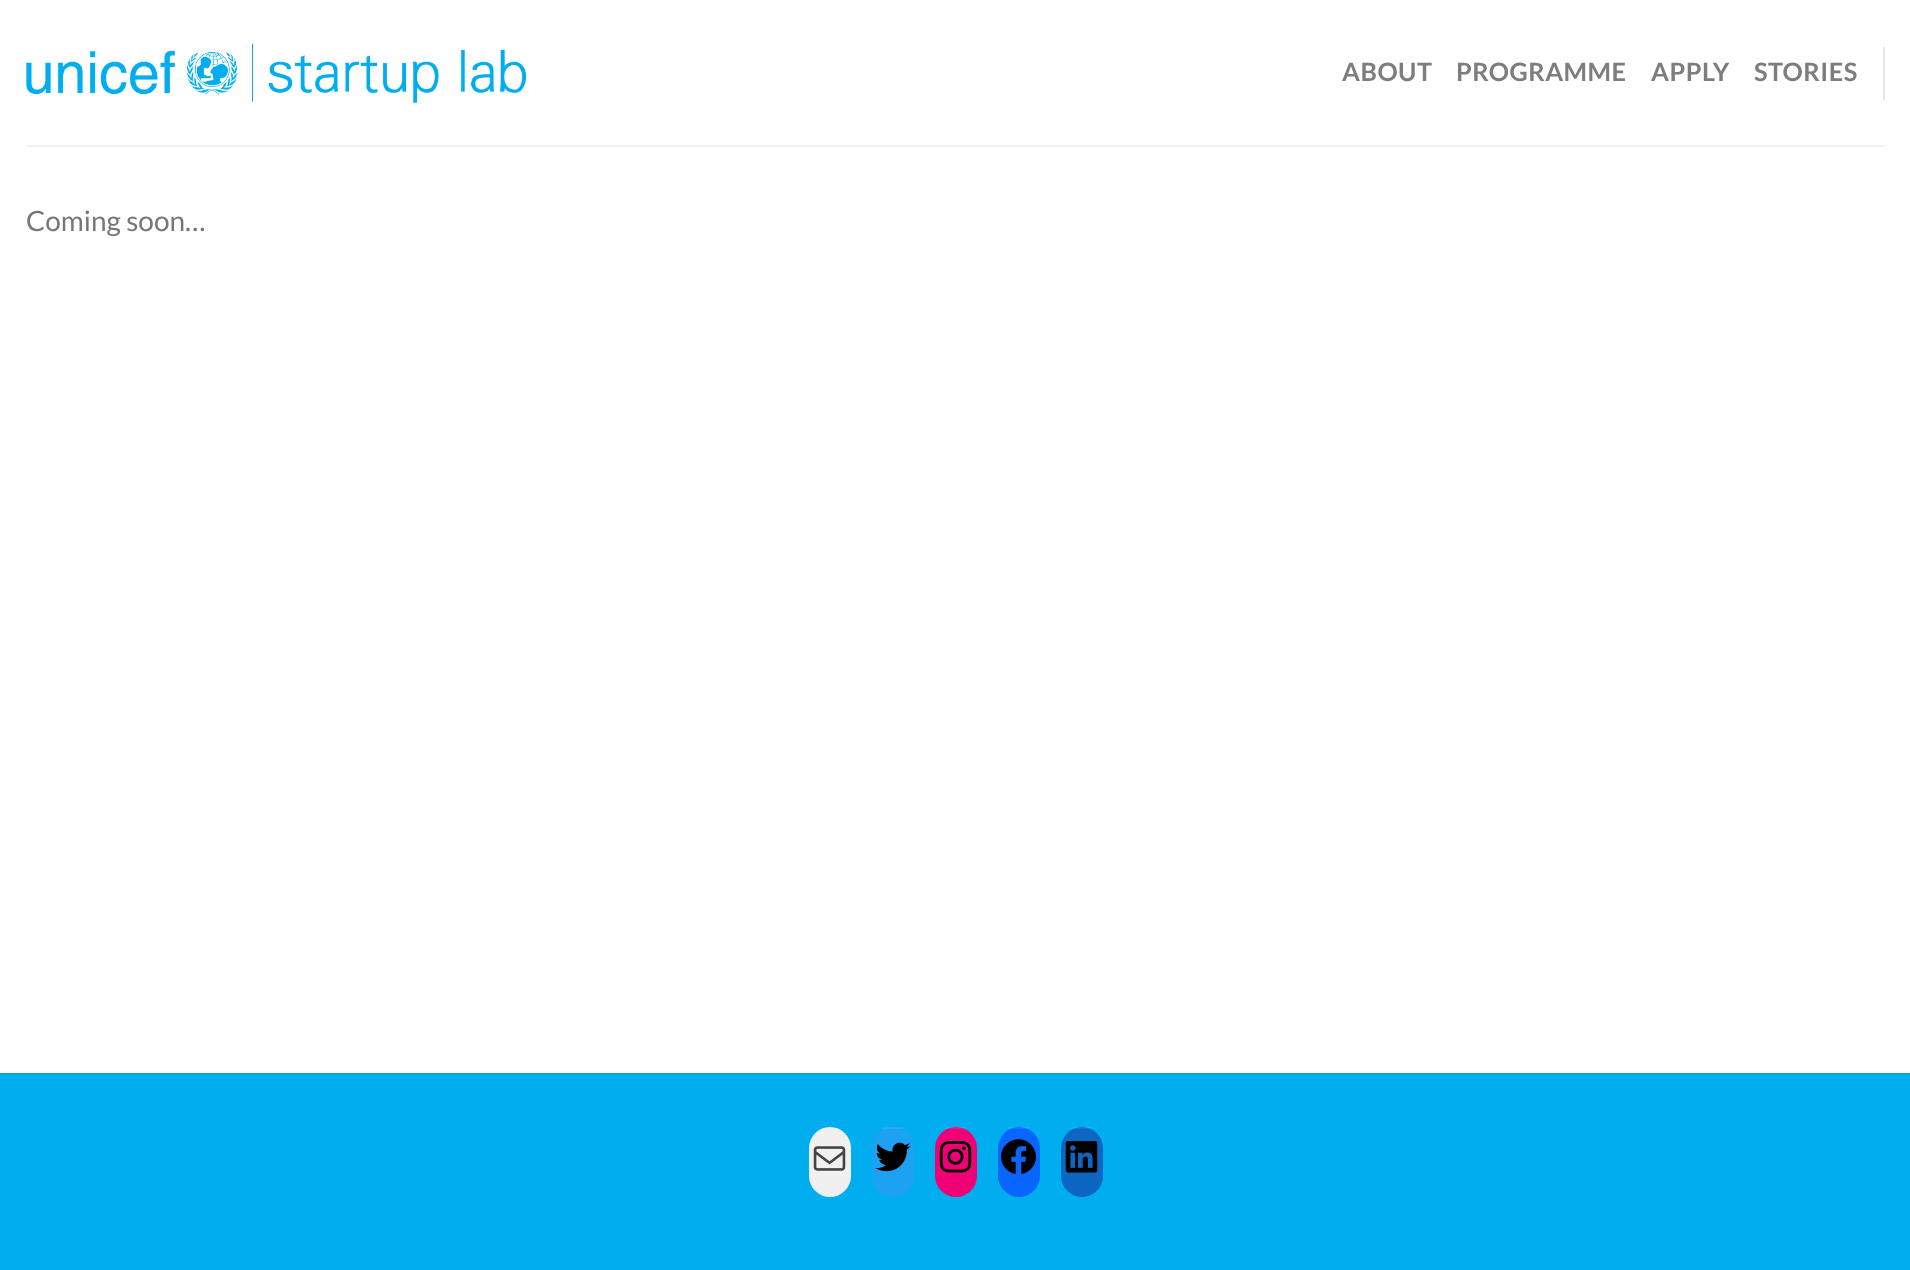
async function draw(canvas) {
  canvas.width = 1910;
  canvas.height = 1270;
  const ctx = canvas.getContext('2d');
  ctx.miterLimit = 4;
  ctx.fontKerning = 'normal';
  function label(s, x, y, font, color) {
    ctx.font = font;
    ctx.fillStyle = color;
    ctx.fillText(s, x, y);
  }
  function rect(x, y, w, h, color) {
    ctx.fillStyle = color;
    ctx.fillRect(x, y, w, h);
  }
  function roundedRect(x, y, w, h, r, color) {
    ctx.fillStyle = color;
    ctx.beginPath();
    ctx.roundRect(x, y, w, h, r);
    ctx.fill();
  }
  async function image(src, x, y, w, h) {
    const img = new Image();
    img.src = src;
    await img.decode();
    ctx.drawImage(img, x, y, w, h);
  }

  rect(0, 0, 1910, 1270, '#fff');
  await image('assets/img1.png', 26, 43, 501, 60);
  ctx.letterSpacing = '0.5px';
  label('ABOUT', 1342, 81, 'bold 25.25px Lato', '#7d7d7d');
  label('PROGRAMME', 1456, 81, 'bold 25.25px Lato', '#7d7d7d');
  label('APPLY', 1651, 81, 'bold 25.25px Lato', '#7d7d7d');
  label('STORIES', 1754, 81, 'bold 25.25px Lato', '#7d7d7d');
  rect(1883, 47, 2, 53, '#e6e6e6');
  rect(26, 145, 1859, 2, '#f1f1f1');
  ctx.letterSpacing = '0px';
  label('Coming soon…', 26, 231, '28px Lato', '#777');
  rect(0, 1075, 1910, 195, '#00aeef');
  rect(0, 1073, 1910, 2, '#00a5e3');
  roundedRect(809, 1127, 42, 70, 21, '#f0f0f0');
  await image('assets/img2.png', 813, 1146, 33, 25);
  roundedRect(872, 1127, 42, 70, 21, '#1da1f2');
  rect(882, 1127, 21, 2, '#ffffff14');
  await image('assets/img3.png', 875, 1142, 36, 30);
  roundedRect(935, 1127, 42, 70, 21, '#f00075');
  rect(945, 1127, 21, 2, '#ffffff14');
  await image('assets/img4.png', 939, 1141, 33, 32);
  roundedRect(998, 1127, 42, 70, 21, '#0866ff');
  rect(1008, 1127, 21, 2, '#ffffff14');
  await image('assets/img5.png', 1001, 1139, 35, 35);
  roundedRect(1061, 1127, 42, 70, 21, '#0d66c2');
  rect(1071, 1127, 21, 2, '#ffffff14');
  await image('assets/img6.png', 1065, 1141, 33, 32);
}

draw(document.querySelector('canvas'));
